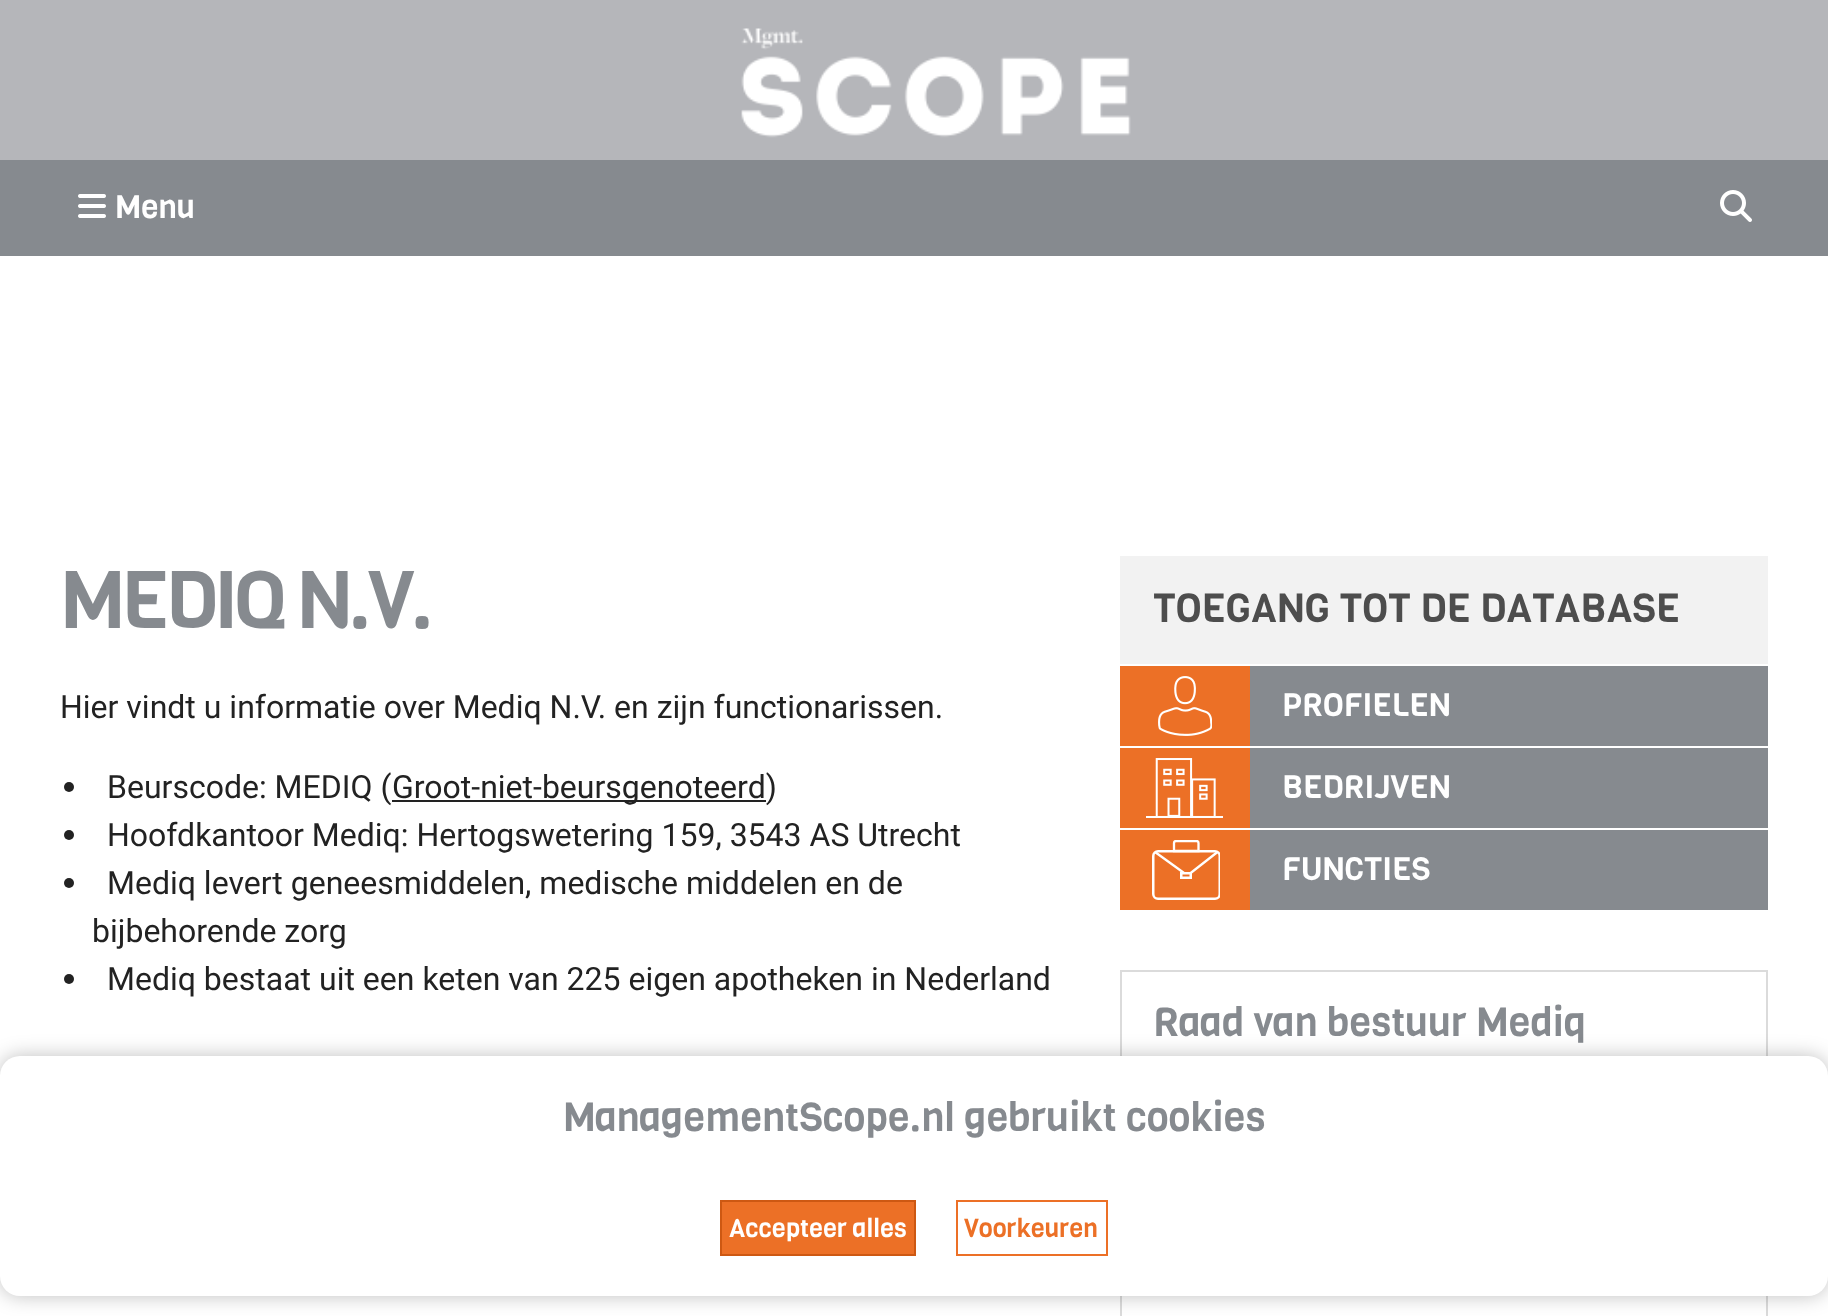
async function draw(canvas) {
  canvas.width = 1828;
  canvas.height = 1316;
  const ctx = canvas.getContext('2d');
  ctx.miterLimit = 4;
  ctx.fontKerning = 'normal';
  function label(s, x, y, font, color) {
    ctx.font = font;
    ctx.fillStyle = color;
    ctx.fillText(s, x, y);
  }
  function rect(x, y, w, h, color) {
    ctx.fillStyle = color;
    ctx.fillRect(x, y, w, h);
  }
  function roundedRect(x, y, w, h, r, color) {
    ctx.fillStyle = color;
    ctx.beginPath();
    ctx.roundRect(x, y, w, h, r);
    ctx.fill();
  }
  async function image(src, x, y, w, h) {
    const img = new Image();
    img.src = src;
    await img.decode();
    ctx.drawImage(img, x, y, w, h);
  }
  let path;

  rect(0, 0, 1828, 1316, '#fff');
  rect(0, 0, 1828, 160, '#b5b6ba');
  await image('assets/img1.png', 741, 28, 390, 110);
  rect(0, 160, 1828, 96, '#868a8f');
  await image('assets/img2.png', 78, 194, 28, 24);
  label('Menu', 115, 218, '32px Viga', '#fff');
  await image('assets/img3.png', 1720, 190, 32, 32);
  ctx.letterSpacing = '-4px';
  label('MEDIQ N.V.', 60, 628, '80px Viga', '#868a8f');
  ctx.letterSpacing = '0px';
  label('Hier vindt u informatie over Mediq N.V. en zijn functionarissen.', 60, 718, '32px Roboto', '#222');
  ctx.beginPath();
  ctx.arc(69, 787, 5, 0, 2 * Math.PI);
  ctx.fill();
  label('Beurscode: MEDIQ (', 107, 798, '32px Roboto', '#222');
  rect(392, 800, 374, 2, '#222');
  label('Groot-niet-beursgenoteerd)', 392, 798, '32px Roboto', '#222');
  ctx.beginPath();
  ctx.arc(69, 835, 5, 0, 2 * Math.PI);
  ctx.fill();
  label('Hoofdkantoor Mediq: Hertogswetering 159, 3543 AS Utrecht', 107, 846, '32px Roboto', '#222');
  ctx.beginPath();
  ctx.arc(69, 883, 5, 0, 2 * Math.PI);
  ctx.fill();
  label('Mediq levert geneesmiddelen, medische middelen en de', 107, 894, '32px Roboto', '#222');
  label('bijbehorende zorg', 92, 942, '32px Roboto', '#222');
  ctx.beginPath();
  ctx.arc(69, 979, 5, 0, 2 * Math.PI);
  ctx.fill();
  label('Mediq bestaat uit een keten van 225 eigen apotheken in Nederland', 107, 990, '32px Roboto', '#222');
  rect(1120, 556, 648, 108, '#f2f2f2');
  label('TOEGANG TOT DE DATABASE', 1153, 622, '40px Viga', '#4d4d4d');
  rect(1120, 666, 130, 80, '#ec7026');
  await image('assets/img4.png', 1158, 676, 54, 60);
  rect(1250, 666, 518, 80, '#868a8f');
  label('PROFIELEN', 1282, 716, '32px Viga', '#fff');
  rect(1120, 748, 130, 80, '#ec7026');
  await image('assets/img5.png', 1146, 758, 77, 60);
  rect(1250, 748, 518, 80, '#868a8f');
  label('BEDRIJVEN', 1282, 798, '32px Viga', '#fff');
  rect(1120, 830, 130, 80, '#ec7026');
  ctx.save();
  ctx.beginPath();
  ctx.rect(1152, 840, 68, 60);
  ctx.clip();
  ctx.beginPath();
  ctx.roundRect(1153.25, 851.25, 66.5, 47.5, 4.75);
  ctx.strokeStyle = '#fff';
  ctx.lineWidth = 2.5;
  ctx.stroke();
  path = new Path2D('M1176 841H1196.5C1197.5 841 1198.5 842 1198.5 843V851H1174V843C1174 842 1175 841 1176 841Z');
  ctx.lineWidth = 2.3;
  ctx.stroke(path);
  ctx.restore();
  path = new Path2D('M1155 852L1187.5 875.5L1217.5 852');
  ctx.strokeStyle = '#fff';
  ctx.lineWidth = 2.3;
  ctx.stroke(path);
  ctx.beginPath();
  ctx.rect(1181.25, 873.25, 9.5, 4.5);
  ctx.fill();
  ctx.lineWidth = 2.5;
  ctx.stroke();
  rect(1250, 830, 518, 80, '#868a8f');
  label('FUNCTIES', 1282, 880, '32px Viga', '#fff');
  ctx.strokeStyle = '#dbdbdb';
  ctx.lineWidth = 2;
  ctx.strokeRect(1121, 971, 646, 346);
  label('Raad van bestuur Mediq', 1153, 1036, '40px Viga', '#868a8f');
  ctx.fillStyle = '#00000040';
  ctx.filter = 'blur(10px)';
  ctx.beginPath();
  ctx.roundRect(0, 1056, 1828, 240, 20);
  ctx.fill();
  ctx.filter = 'none';
  roundedRect(0, 1056, 1828, 240, 20, '#fff');
  label('ManagementScope.nl gebruikt cookies', 563, 1131, '40px Viga', '#868a8f');
  ctx.fillStyle = '#ec7026';
  ctx.beginPath();
  ctx.rect(721, 1201, 194, 54);
  ctx.fill();
  ctx.strokeStyle = '#cd5812';
  ctx.stroke();
  label('Accepteer alles', 729, 1237, '25.5px Viga', '#fff');
  ctx.strokeStyle = '#ec7026';
  ctx.strokeRect(957, 1201, 150, 54);
  label('Voorkeuren', 964, 1237, '25.5px Viga', '#ec7026');
}

draw(document.querySelector('canvas'));
